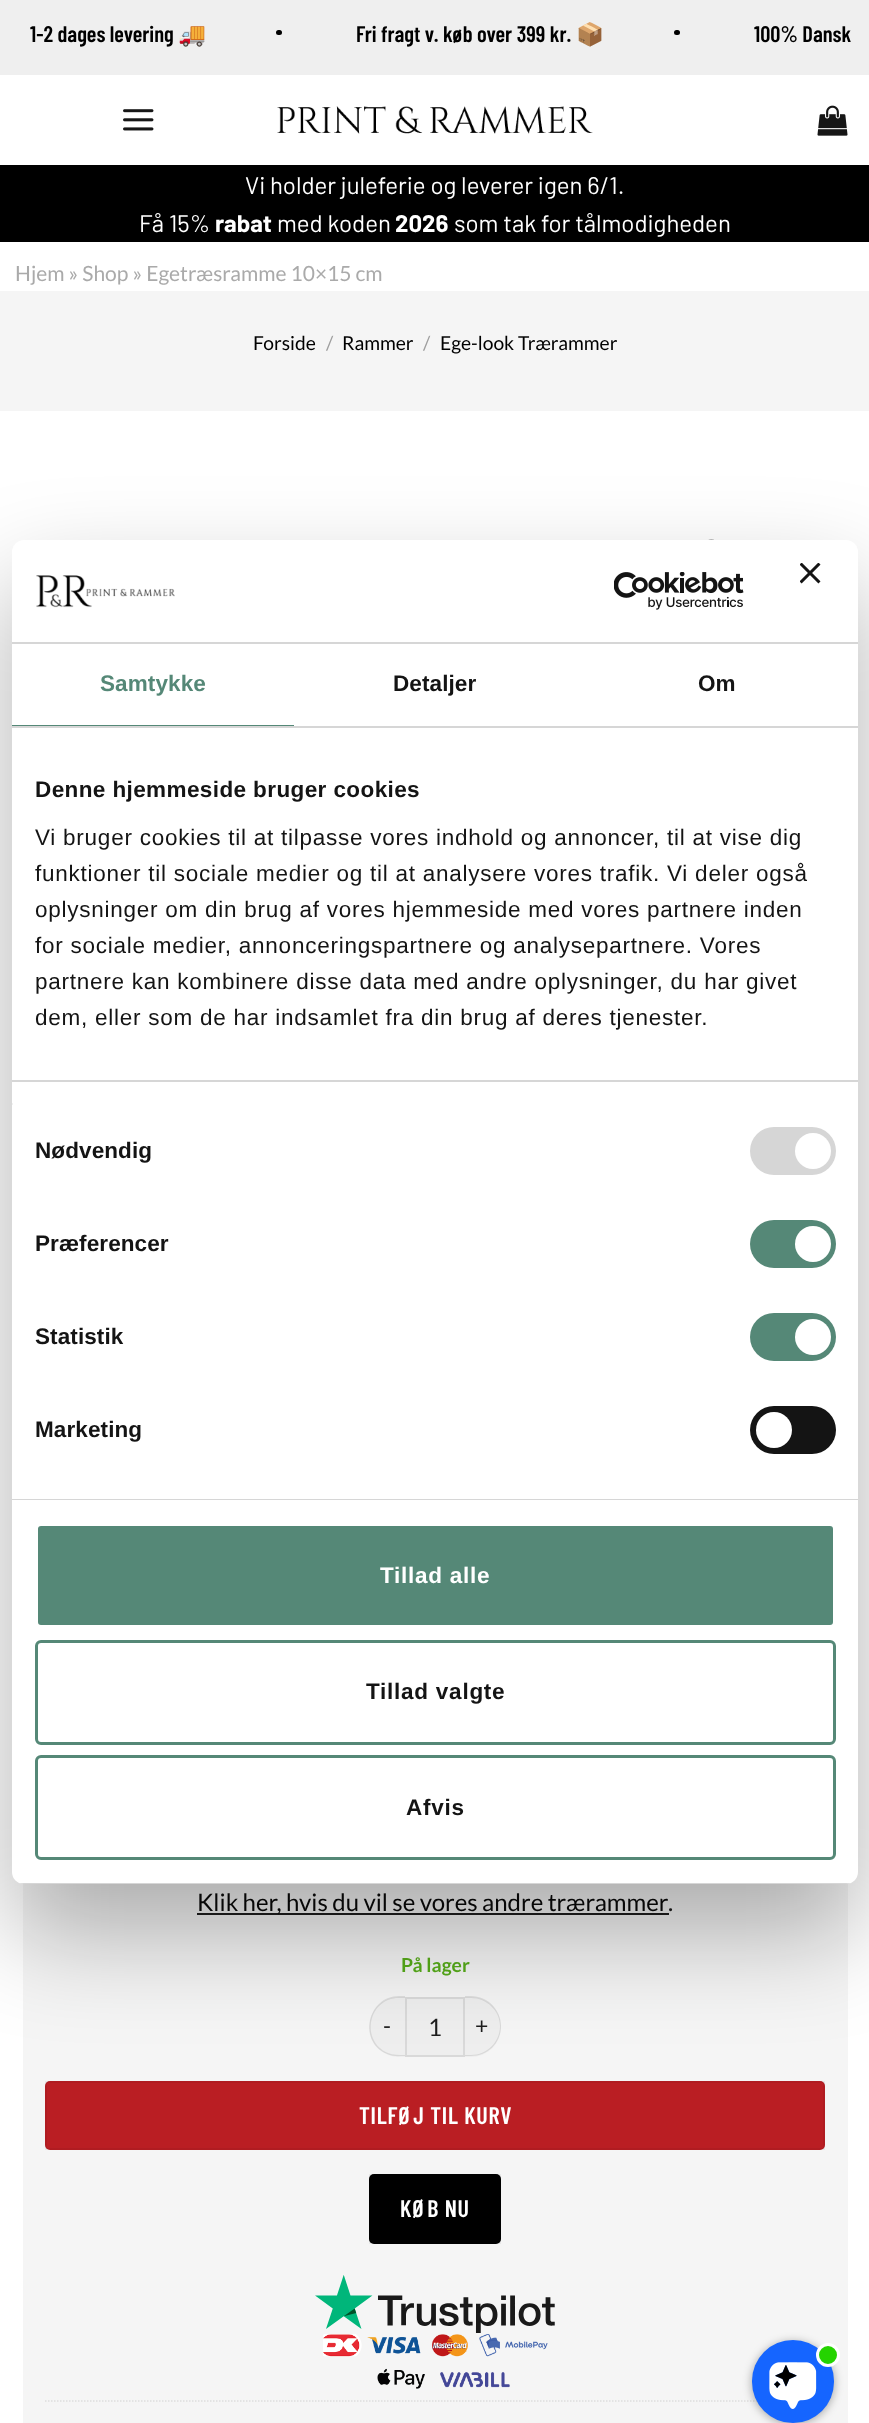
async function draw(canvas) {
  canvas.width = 869;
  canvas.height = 2423;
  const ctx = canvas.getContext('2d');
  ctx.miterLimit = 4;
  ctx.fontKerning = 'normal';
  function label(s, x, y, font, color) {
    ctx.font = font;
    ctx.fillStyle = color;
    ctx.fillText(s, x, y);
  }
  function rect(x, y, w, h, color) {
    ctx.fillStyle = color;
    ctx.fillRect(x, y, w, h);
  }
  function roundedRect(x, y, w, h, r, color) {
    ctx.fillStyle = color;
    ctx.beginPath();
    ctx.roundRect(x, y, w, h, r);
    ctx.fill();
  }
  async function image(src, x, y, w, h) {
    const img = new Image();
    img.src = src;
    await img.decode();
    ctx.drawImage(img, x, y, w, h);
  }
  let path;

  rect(0, 0, 869, 2423, '#fff');
  rect(0, 0, 869, 75, '#efefef');
  label('1-2 dages levering', 30, 42, '600 22.5px Barlow Condensed', '#000');
  label('🚚', 178, 42, 'bold 22.5px Noto Color Emoji', '#000');
  roundedRect(276, 30, 6, 5, 2.5, '#000');
  label('Fri fragt v. køb over 399 kr.', 356, 42, '600 22.5px Barlow Condensed', '#000');
  label('📦', 576, 42, 'bold 22.5px Noto Color Emoji', '#000');
  roundedRect(674, 30, 6, 5, 2.5, '#000');
  label('100% Dansk', 754, 42, '600 22.5px Barlow Condensed', '#000');
  await image('assets/img1.png', 123, 109, 31, 22);
  await image('assets/img2.png', 277, 106, 316, 28);
  await image('assets/img3.png', 817, 105, 31, 31);
  rect(0, 165, 869, 77, '#000');
  label('Vi holder juleferie og leverer igen 6/1.', 245, 194, '24px Barlow', '#fff');
  label('Få 15%', 139, 232, '24px Barlow', '#fff');
  label('rabat', 215, 232, 'bold 24px Barlow', '#fff');
  label('med koden', 277, 232, '24px Barlow', '#fff');
  label('2026', 395, 232, 'bold 24px Barlow', '#fff');
  label('som tak for tålmodigheden', 454, 232, '24px Barlow', '#fff');
  label('Hjem » Shop » Egetræsramme 10×15 cm', 15, 281, '21px Lato', '#aaa');
  rect(0, 291, 869, 120, '#f5f5f5');
  label('Forside', 253, 350, '19.25px Lato', '#000');
  label('/', 326, 350, '19.25px Lato', '#9f9f9f');
  label('Rammer', 342, 350, '19.25px Lato', '#000');
  label('/', 423, 350, '19.25px Lato', '#9f9f9f');
  label('Ege-look Trærammer', 440, 350, '19.25px Lato', '#000');
  await image('assets/img4.png', 708, 539, 6, 1);
  rect(23, 1883, 825, 540, '#f5f5f5');
  rect(197, 1913, 472, 2, '#1e1e1e');
  ctx.wordSpacing = '-0.25px';
  label('Klik her, hvis du vil se vores andre trærammer', 197, 1911, '24px Lato', '#0a0a0a');
  ctx.wordSpacing = '0px';
  label('.', 668, 1911, '24px Lato', '#1e1e1e');
  label('På lager', 401, 1972, 'bold 19.25px Lato', '#57ac1a');
  ctx.fillStyle = '#eee';
  ctx.beginPath();
  ctx.roundRect(369, 1997, 36, 60, [30, 0, 0, 30]);
  ctx.fill();
  ctx.fillStyle = '#00000017';
  path = new Path2D('M399 1996H405V2056C399 2056 393 2057 387 2054C358 2042 367 1996 399 1996ZM399 1998H405V2055C399 2055 393 2055 388 2053C360 2041 368 1998 399 1998Z');
  ctx.fill(path, 'evenodd');
  ctx.letterSpacing = '1px';
  label('-', 383, 2034, '23px Lato', '#1e1e1e');
  ctx.fillStyle = '#eee';
  ctx.beginPath();
  ctx.rect(406, 1998, 58, 58);
  ctx.fill();
  ctx.strokeStyle = '#d9d9d9';
  ctx.lineWidth = 2;
  ctx.stroke();
  ctx.letterSpacing = '0px';
  label('1', 428, 2036, '24px Lato', '#1e1e1e');
  ctx.fillStyle = '#eee';
  ctx.beginPath();
  ctx.roundRect(465, 1997, 36, 60, [0, 30, 30, 0]);
  ctx.fill();
  ctx.fillStyle = '#00000017';
  path = new Path2D('M465 1996H471C488 1996 501 2010 501 2026C501 2043 488 2056 471 2056H465ZM465 1998H471C487 1998 500 2011 500 2026C500 2042 487 2055 471 2055H465Z');
  ctx.fill(path, 'evenodd');
  ctx.letterSpacing = '1px';
  label('+', 475, 2034, '23px Lato', '#1e1e1e');
  roundedRect(45, 2081, 780, 69, 5, '#ba1e23');
  ctx.strokeStyle = '#0000000d';
  ctx.strokeRect(46, 2082, 778, 67);
  ctx.letterSpacing = '0.75px';
  label('TILFØJ TIL KURV', 359, 2124, '600 24px Barlow Condensed', '#fff');
  roundedRect(369, 2174, 132, 70, 5, '#000');
  ctx.strokeRect(370, 2175, 130, 68);
  label('KØB NU', 400, 2217, '600 24px Barlow Condensed', '#fff');
  await image('assets/img5.png', 315, 2275, 240, 58);
  await image('assets/img6.png', 323, 2334, 225, 55);
  path = new Path2D('M45 2401H825');
  ctx.strokeStyle = '#ddd';
  ctx.lineWidth = 1.5;
  ctx.setLineDash([1.5, 1.5]);
  ctx.stroke(path);
  ctx.fillStyle = '#0000004d';
  ctx.filter = 'blur(51px)';
  ctx.beginPath();
  ctx.roundRect(12, 588, 846, 1344, 12);
  ctx.fill();
  ctx.filter = 'none';
  roundedRect(12, 540, 846, 1344, 12, '#fff');
  rect(12, 642, 846, 2, '#d6d6d6');
  await image('assets/img7.png', 36, 575, 139, 33);
  await image('assets/img8.png', 614, 572, 130, 38);
  await image('assets/img9.png', 800, 563, 21, 21);
  rect(12, 726, 846, 2, '#d6d6d6');
  rect(12, 725, 282, 1, '#587');
  ctx.letterSpacing = '0.1px';
  label('Samtykke', 100, 691, 'bold 22.5px Liberation Sans', '#587');
  label('Detaljer', 393, 691, 'bold 22.5px Liberation Sans', '#141414');
  label('Om', 698, 691, 'bold 22.5px Liberation Sans', '#141414');
  rect(12, 1080, 846, 2, '#d6d6d6');
  ctx.letterSpacing = '0.4px';
  label('Denne hjemmeside bruger cookies', 35, 797, 'bold 22.5px Liberation Sans', '#141414');
  ctx.letterSpacing = '0.75px';
  label('Vi bruger cookies til at tilpasse vores indhold og annoncer, til at vise dig', 35, 845, '22.5px Liberation Sans', '#141414');
  label('funktioner til sociale medier og til at analysere vores trafik. Vi deler også', 35, 881, '22.5px Liberation Sans', '#141414');
  label('oplysninger om din brug af vores hjemmeside med vores partnere inden', 35, 917, '22.5px Liberation Sans', '#141414');
  label('for sociale medier, annonceringspartnere og analysepartnere. Vores', 35, 953, '22.5px Liberation Sans', '#141414');
  label('partnere kan kombinere disse data med andre oplysninger, du har givet', 35, 989, '22.5px Liberation Sans', '#141414');
  label('dem, eller som de har indsamlet fra din brug af deres tjenester.', 35, 1025, '22.5px Liberation Sans', '#141414');
  rect(12, 1499, 846, 1, '#d6d6d6');
  rect(12, 1103, 1, 2, '#f1f1f1');
  ctx.letterSpacing = '0.1px';
  label('Nødvendig', 35, 1158, 'bold 22.5px Liberation Sans', '#141414');
  roundedRect(750, 1127, 86, 48, 24, '#d6d6d6');
  ctx.fillStyle = '#fff';
  ctx.beginPath();
  ctx.arc(813, 1151, 18, 0, 2 * Math.PI);
  ctx.fill();
  label('Præferencer', 35, 1251, 'bold 22.5px Liberation Sans', '#141414');
  roundedRect(750, 1220, 86, 48, 24, '#587');
  ctx.fillStyle = '#fff';
  ctx.beginPath();
  ctx.arc(813, 1244, 18, 0, 2 * Math.PI);
  ctx.fill();
  label('Statistik', 35, 1344, 'bold 22.5px Liberation Sans', '#141414');
  roundedRect(750, 1313, 86, 48, 24, '#587');
  ctx.fillStyle = '#fff';
  ctx.beginPath();
  ctx.arc(813, 1337, 18, 0, 2 * Math.PI);
  ctx.fill();
  label('Marketing', 35, 1437, 'bold 22.5px Liberation Sans', '#141414');
  roundedRect(750, 1406, 86, 48, 24, '#141414');
  ctx.fillStyle = '#fff';
  ctx.beginPath();
  ctx.arc(774, 1430, 18, 0, 2 * Math.PI);
  ctx.fill();
  ctx.save();
  ctx.beginPath();
  ctx.roundRect(12, 540, 846, 1344, 12);
  ctx.clip();
  rect(12, 1883, 846, 1, '#d6d6d6');
  ctx.restore();
  ctx.fillStyle = '#587';
  ctx.beginPath();
  ctx.roundRect(36.5, 1524.5, 798, 102, 4.5);
  ctx.fill();
  ctx.strokeStyle = '#fff';
  ctx.lineWidth = 3;
  ctx.setLineDash([]);
  ctx.stroke();
  ctx.letterSpacing = '0.75px';
  label('Tillad alle', 380, 1583, 'bold 22.5px Liberation Sans', '#fff');
  ctx.beginPath();
  ctx.roundRect(36.5, 1641.5, 798, 102, 4.5);
  ctx.strokeStyle = '#587';
  ctx.stroke();
  label('Tillad valgte', 366, 1699, 'bold 22.5px Liberation Sans', '#141414');
  ctx.beginPath();
  ctx.roundRect(36.5, 1756.5, 798, 102, 4.5);
  ctx.stroke();
  label('Afvis', 406, 1815, 'bold 22.5px Liberation Sans', '#141414');
  ctx.fillStyle = '#00000059';
  ctx.filter = 'blur(5px)';
  ctx.beginPath();
  ctx.roundRect(752, 2342, 82, 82, 41);
  ctx.fill();
  ctx.filter = 'none';
  roundedRect(752, 2340, 82, 83, 41, '#1565ff');
  await image('assets/img10.png', 769, 2362, 48, 47);
  ctx.fillStyle = '#25d300';
  ctx.beginPath();
  ctx.arc(828, 2355, 10.5, 0, 2 * Math.PI);
  ctx.fill();
  ctx.strokeStyle = '#fff';
  ctx.stroke();
}

draw(document.querySelector('canvas'));
